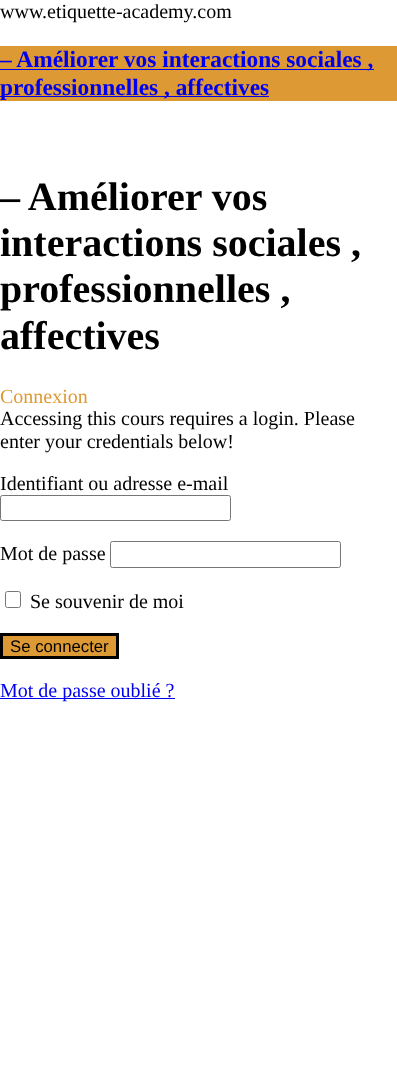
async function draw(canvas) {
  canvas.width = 397;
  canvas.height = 1081;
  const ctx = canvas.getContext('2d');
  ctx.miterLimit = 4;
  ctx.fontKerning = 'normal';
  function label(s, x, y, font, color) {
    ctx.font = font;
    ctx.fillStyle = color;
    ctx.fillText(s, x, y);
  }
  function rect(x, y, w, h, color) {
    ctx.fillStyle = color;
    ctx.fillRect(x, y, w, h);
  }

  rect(0, 0, 397, 1081, '#fff');
  label('www.etiquette-academy.com', 0, 18, '20px Liberation Serif', '#000');
  rect(0, 46, 397, 55, '#d93');
  rect(0, 69, 374, 1, '#00e');
  label('– Améliorer vos interactions sociales ,', 0, 67, 'bold 23.4px Liberation Serif', '#00e');
  rect(0, 96, 269, 1, '#00e');
  label('professionnelles , affectives', 0, 95, 'bold 23.4px Liberation Serif', '#00e');
  label('– Améliorer vos', 0, 210, 'bold 40px Liberation Serif', '#000');
  label('interactions sociales ,', 0, 256, 'bold 40px Liberation Serif', '#000');
  label('professionnelles ,', 0, 302, 'bold 40px Liberation Serif', '#000');
  label('affectives', 0, 349, 'bold 40px Liberation Serif', '#000');
  label('Connexion', 0, 403, '20px Liberation Serif', '#d93');
  label('Accessing this cours requires a login. Please', 0, 425, '20px Liberation Serif', '#000');
  label('enter your credentials below!', 0, 448, '20px Liberation Serif', '#000');
  label('Identifiant ou adresse e-mail', 0, 490, '20px Liberation Serif', '#000');
  ctx.beginPath();
  ctx.roundRect(0.5, 495.5, 230, 25, 2);
  ctx.strokeStyle = '#767676';
  ctx.stroke();
  label('Mot de passe', 0, 560, '20px Liberation Serif', '#000');
  ctx.beginPath();
  ctx.roundRect(110.5, 541.5, 230, 26, 2);
  ctx.stroke();
  ctx.beginPath();
  ctx.roundRect(5.5, 591.5, 15, 16, 2);
  ctx.stroke();
  label('Se souvenir de moi', 30, 608, '20px Liberation Serif', '#000');
  ctx.fillStyle = '#d93';
  ctx.beginPath();
  ctx.rect(1.5, 634.5, 116, 23);
  ctx.fill();
  ctx.strokeStyle = '#000';
  ctx.lineWidth = 3;
  ctx.stroke();
  label('Se connecter', 10, 652, '16.75px Liberation Sans', '#000');
  rect(0, 698, 175, 1, '#00e');
  label('Mot de passe oublié ?', 0, 697, '20px Liberation Serif', '#00e');
}

draw(document.querySelector('canvas'));
